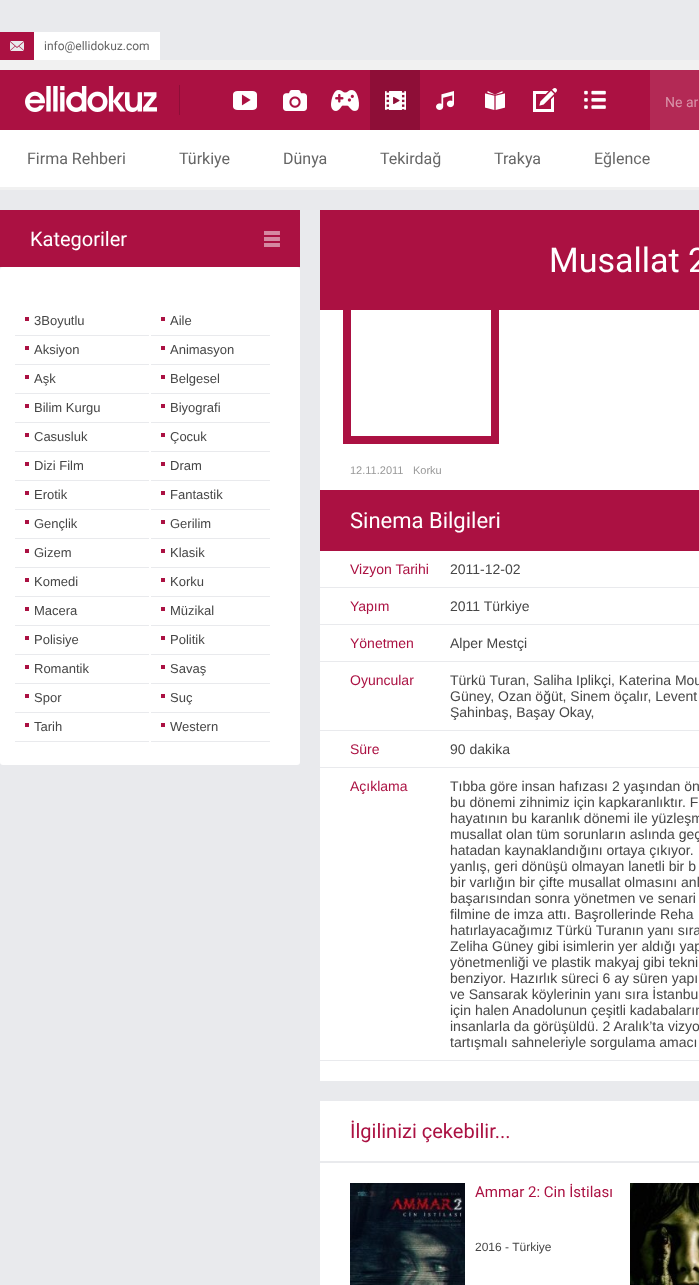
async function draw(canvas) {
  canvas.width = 699;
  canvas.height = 1285;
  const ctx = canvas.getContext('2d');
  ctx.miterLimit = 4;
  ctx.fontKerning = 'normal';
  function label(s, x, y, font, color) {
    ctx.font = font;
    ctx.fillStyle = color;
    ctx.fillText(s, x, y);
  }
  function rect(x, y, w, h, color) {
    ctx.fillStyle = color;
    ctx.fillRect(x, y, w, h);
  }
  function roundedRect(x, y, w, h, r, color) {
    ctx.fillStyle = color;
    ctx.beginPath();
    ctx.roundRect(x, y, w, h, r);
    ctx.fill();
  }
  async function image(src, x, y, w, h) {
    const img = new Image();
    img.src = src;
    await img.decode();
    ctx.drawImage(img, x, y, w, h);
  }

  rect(0, 0, 699, 1285, '#fff');
  rect(0, 0, 699, 60, '#e9eaed');
  rect(34, 32, 126, 28, '#fff');
  rect(0, 32, 34, 28, '#ab1142');
  await image('assets/img1.png', 10, 41, 14, 10);
  label('info@ellidokuz.com', 44, 50, '12px Roboto', '#666');
  rect(0, 60, 699, 10, '#f1f1f1');
  rect(0, 70, 650, 60, '#ab1142');
  await image('assets/img2.png', 25, 86, 132, 26);
  rect(179, 85, 1, 30, '#8e0e37');
  await image('assets/img3.png', 233, 91, 24, 19);
  await image('assets/img4.png', 283, 90, 24, 21);
  await image('assets/img5.png', 331, 90, 28, 21);
  rect(370, 70, 50, 60, '#8e0e37');
  await image('assets/img6.png', 385, 91, 21, 19);
  await image('assets/img7.png', 436, 91, 18, 19);
  await image('assets/img8.png', 485, 91, 20, 19);
  await image('assets/img9.png', 533, 88, 24, 24);
  await image('assets/img10.png', 584, 90, 22, 19);
  rect(650, 70, 49, 60, '#b32955');
  label('Ne ar', 665, 107, '14px Roboto', '#d994aa');
  label('Firma Rehberi', 27, 164, '16px Roboto', '#666');
  label('Türkiye', 179, 164, '16px Roboto', '#666');
  label('Dünya', 283, 164, '16px Roboto', '#666');
  label('Tekirdağ', 380, 164, '16px Roboto', '#666');
  label('Trakya', 494, 164, '16px Roboto', '#666');
  label('Eğlence', 594, 164, '16px Roboto', '#666');
  rect(0, 187, 699, 3, '#f1f1f1');
  rect(0, 190, 699, 1095, '#e9eaed');
  rect(0, 210, 300, 57, '#ab1142');
  await image('assets/img11.png', 264, 231, 16, 16);
  label('Kategoriler', 30, 246, '20px Roboto', '#fff');
  roundedRect(0, 267, 300, 498, 3, '#fff');
  rect(15, 335, 134, 1, '#e9eaed');
  rect(25, 317, 4, 4, '#ab1142');
  label('3Boyutlu', 34, 325, '13px Liberation Sans', '#464646');
  rect(151, 335, 119, 1, '#e9eaed');
  rect(161, 317, 4, 4, '#ab1142');
  label('Aile', 170, 325, '13px Liberation Sans', '#464646');
  rect(15, 364, 134, 1, '#e9eaed');
  rect(25, 346, 4, 4, '#ab1142');
  label('Aksiyon', 34, 354, '13px Liberation Sans', '#464646');
  rect(151, 364, 119, 1, '#e9eaed');
  rect(161, 346, 4, 4, '#ab1142');
  label('Animasyon', 170, 354, '13px Liberation Sans', '#464646');
  rect(15, 393, 134, 1, '#e9eaed');
  rect(25, 375, 4, 4, '#ab1142');
  label('Aşk', 34, 383, '13px Liberation Sans', '#464646');
  rect(151, 393, 119, 1, '#e9eaed');
  rect(161, 375, 4, 4, '#ab1142');
  label('Belgesel', 170, 383, '13px Liberation Sans', '#464646');
  rect(15, 422, 134, 1, '#e9eaed');
  rect(25, 404, 4, 4, '#ab1142');
  label('Bilim Kurgu', 34, 412, '13px Liberation Sans', '#464646');
  rect(151, 422, 119, 1, '#e9eaed');
  rect(161, 404, 4, 4, '#ab1142');
  label('Biyografi', 170, 412, '13px Liberation Sans', '#464646');
  rect(15, 451, 134, 1, '#e9eaed');
  rect(25, 433, 4, 4, '#ab1142');
  label('Casusluk', 34, 441, '13px Liberation Sans', '#464646');
  rect(151, 451, 119, 1, '#e9eaed');
  rect(161, 433, 4, 4, '#ab1142');
  label('Çocuk', 170, 441, '13px Liberation Sans', '#464646');
  rect(15, 480, 134, 1, '#e9eaed');
  rect(25, 462, 4, 4, '#ab1142');
  label('Dizi Film', 34, 470, '13px Liberation Sans', '#464646');
  rect(151, 480, 119, 1, '#e9eaed');
  rect(161, 462, 4, 4, '#ab1142');
  label('Dram', 170, 470, '13px Liberation Sans', '#464646');
  rect(15, 509, 134, 1, '#e9eaed');
  rect(25, 491, 4, 4, '#ab1142');
  label('Erotik', 34, 499, '13px Liberation Sans', '#464646');
  rect(151, 509, 119, 1, '#e9eaed');
  rect(161, 491, 4, 4, '#ab1142');
  label('Fantastik', 170, 499, '13px Liberation Sans', '#464646');
  rect(15, 538, 134, 1, '#e9eaed');
  rect(25, 520, 4, 4, '#ab1142');
  label('Gençlik', 34, 528, '13px Liberation Sans', '#464646');
  rect(151, 538, 119, 1, '#e9eaed');
  rect(161, 520, 4, 4, '#ab1142');
  label('Gerilim', 170, 528, '13px Liberation Sans', '#464646');
  rect(15, 567, 134, 1, '#e9eaed');
  rect(25, 549, 4, 4, '#ab1142');
  label('Gizem', 34, 557, '13px Liberation Sans', '#464646');
  rect(151, 567, 119, 1, '#e9eaed');
  rect(161, 549, 4, 4, '#ab1142');
  label('Klasik', 170, 557, '13px Liberation Sans', '#464646');
  rect(15, 596, 134, 1, '#e9eaed');
  rect(25, 578, 4, 4, '#ab1142');
  label('Komedi', 34, 586, '13px Liberation Sans', '#464646');
  rect(151, 596, 119, 1, '#e9eaed');
  rect(161, 578, 4, 4, '#ab1142');
  label('Korku', 170, 586, '13px Liberation Sans', '#464646');
  rect(15, 625, 134, 1, '#e9eaed');
  rect(25, 607, 4, 4, '#ab1142');
  label('Macera', 34, 615, '13px Liberation Sans', '#464646');
  rect(151, 625, 119, 1, '#e9eaed');
  rect(161, 607, 4, 4, '#ab1142');
  label('Müzikal', 170, 615, '13px Liberation Sans', '#464646');
  rect(15, 654, 134, 1, '#e9eaed');
  rect(25, 636, 4, 4, '#ab1142');
  label('Polisiye', 34, 644, '13px Liberation Sans', '#464646');
  rect(151, 654, 119, 1, '#e9eaed');
  rect(161, 636, 4, 4, '#ab1142');
  label('Politik', 170, 644, '13px Liberation Sans', '#464646');
  rect(15, 683, 134, 1, '#e9eaed');
  rect(25, 665, 4, 4, '#ab1142');
  label('Romantik', 34, 673, '13px Liberation Sans', '#464646');
  rect(151, 683, 119, 1, '#e9eaed');
  rect(161, 665, 4, 4, '#ab1142');
  label('Savaş', 170, 673, '13px Liberation Sans', '#464646');
  rect(15, 712, 134, 1, '#e9eaed');
  rect(25, 694, 4, 4, '#ab1142');
  label('Spor', 34, 702, '13px Liberation Sans', '#464646');
  rect(151, 712, 119, 1, '#e9eaed');
  rect(161, 694, 4, 4, '#ab1142');
  label('Suç', 170, 702, '13px Liberation Sans', '#464646');
  rect(15, 741, 134, 1, '#e9eaed');
  rect(25, 723, 4, 4, '#ab1142');
  label('Tarih', 34, 731, '13px Liberation Sans', '#464646');
  rect(151, 741, 119, 1, '#e9eaed');
  rect(161, 723, 4, 4, '#ab1142');
  label('Western', 170, 731, '13px Liberation Sans', '#464646');
  rect(320, 310, 379, 771, '#fff');
  rect(320, 210, 379, 100, '#ab1142');
  ctx.strokeStyle = '#ab1142';
  ctx.lineWidth = 8;
  ctx.strokeRect(347, 226, 148, 214);
  label('Musallat 2', 549, 272, '34px Roboto', '#fff');
  label('12.11.2011', 350, 474, '11px Liberation Sans', '#999');
  label('Korku', 413, 474, '11px Liberation Sans', '#999');
  rect(320, 490, 379, 61, '#ab1142');
  label('Sinema Bilgileri', 350, 528, '22px Roboto', '#fff');
  rect(320, 587, 379, 1, '#e9eaed');
  label('Vizyon Tarihi', 350, 574, '14px Liberation Sans', '#ab1142');
  label('2011-12-02', 450, 574, '14px Liberation Sans', '#464646');
  rect(320, 624, 379, 1, '#e9eaed');
  label('Yapım', 350, 611, '14px Liberation Sans', '#ab1142');
  label('2011 Türkiye', 450, 611, '14px Liberation Sans', '#464646');
  rect(320, 661, 379, 1, '#e9eaed');
  label('Yönetmen', 350, 648, '14px Liberation Sans', '#ab1142');
  label('Alper Mestçi', 450, 648, '14px Liberation Sans', '#464646');
  rect(320, 730, 379, 1, '#e9eaed');
  label('Oyuncular', 350, 685, '14px Liberation Sans', '#ab1142');
  label('Türkü Turan, Saliha Iplikçi, Katerina Mou', 450, 685, '14px Liberation Sans', '#464646');
  label('Güney, Ozan öğüt, Sinem öçalır, Levent', 450, 701, '14px Liberation Sans', '#464646');
  label('Şahinbaş, Başay Okay,', 450, 717, '14px Liberation Sans', '#464646');
  rect(320, 767, 379, 1, '#e9eaed');
  label('Süre', 350, 754, '14px Liberation Sans', '#ab1142');
  label('90 dakika', 450, 754, '14px Liberation Sans', '#464646');
  rect(320, 1060, 379, 1, '#e9eaed');
  label('Açıklama', 350, 791, '14px Liberation Sans', '#ab1142');
  label('Tıbba göre insan hafızası 2 yaşından ön', 450, 791, '14px Liberation Sans', '#464646');
  label('bu dönemi zihnimiz için kapkaranlıktır. F', 450, 807, '14px Liberation Sans', '#464646');
  label('hayatının bu karanlık dönemi ile yüzleşm', 450, 823, '14px Liberation Sans', '#464646');
  label('musallat olan tüm sorunların aslında geç', 450, 839, '14px Liberation Sans', '#464646');
  label('hatadan kaynaklandığını ortaya çıkıyor.', 450, 855, '14px Liberation Sans', '#464646');
  label('yanlış, geri dönüşü olmayan lanetli bir b', 450, 871, '14px Liberation Sans', '#464646');
  label('bir varlığın bir çifte musallat olmasını anl', 450, 887, '14px Liberation Sans', '#464646');
  label('başarısından sonra yönetmen ve senari', 450, 903, '14px Liberation Sans', '#464646');
  label('filmine de imza attı. Başrollerinde Reha', 450, 919, '14px Liberation Sans', '#464646');
  label('hatırlayacağımız Türkü Turanın yanı sıra', 450, 935, '14px Liberation Sans', '#464646');
  label('Zeliha Güney gibi isimlerin yer aldığı yap', 450, 951, '14px Liberation Sans', '#464646');
  label('yönetmenliği ve plastik makyaj gibi tekni', 450, 967, '14px Liberation Sans', '#464646');
  label('benziyor. Hazırlık süreci 6 ay süren yapı', 450, 983, '14px Liberation Sans', '#464646');
  label('ve Sansarak köylerinin yanı sıra İstanbu', 450, 999, '14px Liberation Sans', '#464646');
  label('için halen Anadolunun çeşitli kadabaların', 450, 1015, '14px Liberation Sans', '#464646');
  label('insanlarla da görüşüldü. 2 Aralık’ta vizyo', 450, 1031, '14px Liberation Sans', '#464646');
  label('tartışmalı sahneleriyle sorgulama amacı', 450, 1047, '14px Liberation Sans', '#464646');
  rect(320, 1101, 379, 184, '#fff');
  rect(320, 1161, 379, 2, '#e9eaed');
  label('İlgilinizi çekebilir...', 350, 1138, '20px Roboto', '#ab1142');
  await image('assets/img12.png', 350, 1183, 115, 102);
  label('Ammar 2: Cin İstilası', 475, 1197, '15px Roboto', '#ab1142');
  label('2016 - Türkiye', 475, 1251, '12px Liberation Sans', '#464646');
  await image('assets/img13.png', 630, 1183, 69, 102);
}

draw(document.querySelector('canvas'));
